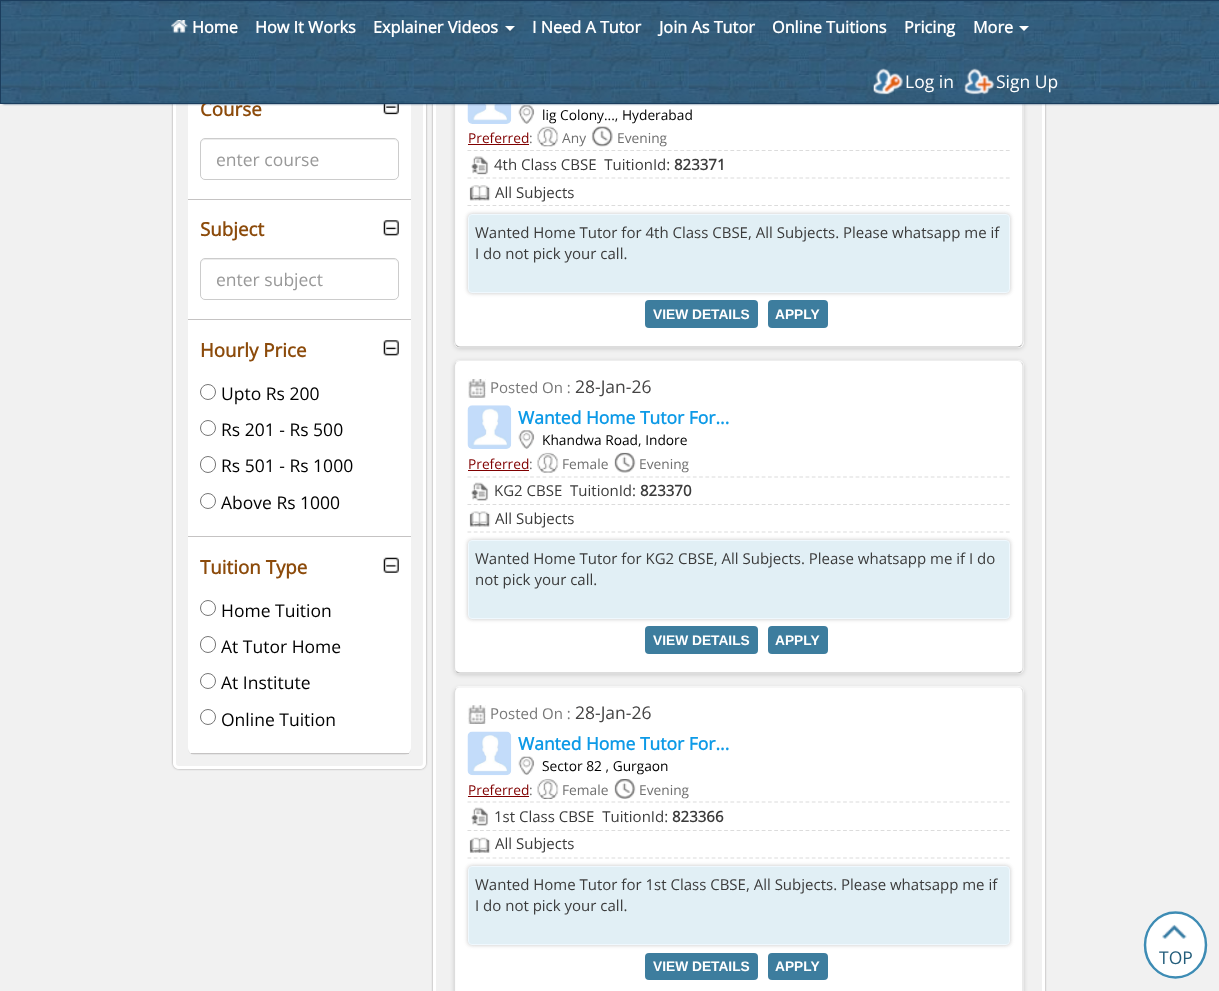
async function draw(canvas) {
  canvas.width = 1219;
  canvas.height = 991;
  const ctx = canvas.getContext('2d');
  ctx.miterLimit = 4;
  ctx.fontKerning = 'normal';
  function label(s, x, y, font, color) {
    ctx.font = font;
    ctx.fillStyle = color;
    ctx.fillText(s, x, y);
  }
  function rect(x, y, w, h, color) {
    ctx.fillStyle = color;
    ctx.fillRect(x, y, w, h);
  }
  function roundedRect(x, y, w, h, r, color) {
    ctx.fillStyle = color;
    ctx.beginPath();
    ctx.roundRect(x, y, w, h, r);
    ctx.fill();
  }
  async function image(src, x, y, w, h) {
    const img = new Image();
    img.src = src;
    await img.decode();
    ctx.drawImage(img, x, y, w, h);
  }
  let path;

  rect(0, 0, 1219, 991, '#f1f1f1');
  ctx.save();
  path = new Path2D('M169 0H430V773H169ZM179-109H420C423.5-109 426-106.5 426-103V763C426 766.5 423.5 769 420 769H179C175.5 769 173 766.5 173 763V-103C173-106.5 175.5-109 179-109Z');
  ctx.clip(path, 'evenodd');
  ctx.fillStyle = '#9b9a9a';
  ctx.filter = 'blur(1px)';
  ctx.beginPath();
  ctx.roundRect(173, -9, 253, 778, 6);
  ctx.fill();
  ctx.filter = 'none';
  ctx.restore();
  ctx.beginPath();
  ctx.roundRect(174.5, -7.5, 250, 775, 4.5);
  ctx.strokeStyle = '#fff';
  ctx.lineWidth = 3;
  ctx.stroke();
  rect(188, 104, 223, 95, '#fff');
  await image('assets/img5.png', 383, 104, 16, 11);
  ctx.save();
  path = new Path2D('M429 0H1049V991H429ZM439-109H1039C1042.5-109 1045-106.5 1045-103V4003C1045 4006.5 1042.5 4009 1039 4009H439C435.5 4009 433 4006.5 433 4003V-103C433-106.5 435.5-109 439-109Z');
  ctx.clip(path, 'evenodd');
  ctx.fillStyle = '#9b9a9a';
  ctx.filter = 'blur(1px)';
  ctx.beginPath();
  ctx.roundRect(433, -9, 612, 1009, 6);
  ctx.fill();
  ctx.filter = 'none';
  ctx.restore();
  ctx.strokeRect(434.5, -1.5, 609, 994);
  ctx.fillStyle = '#00000026';
  ctx.filter = 'blur(2px)';
  ctx.beginPath();
  ctx.roundRect(454, 36, 570, 313, 6);
  ctx.fill();
  ctx.filter = 'none';
  roundedRect(454, 35, 570, 313, 6, '#fff');
  path = new Path2D('M1021.5 37.5C1022.5 38.5 1023 40 1023 41V341C1023 342.5 1022.5 344 1021.5 345');
  ctx.strokeStyle = '#ddd';
  ctx.lineWidth = 1.2;
  ctx.stroke(path);
  path = new Path2D('M1021.5 345C1020.5 346.5 1019 347 1017.5 347H460C458.5 347 457 346.5 456 345');
  ctx.strokeStyle = '#bbb';
  ctx.stroke(path);
  path = new Path2D('M456 345C455 344 454.5 342.5 454.5 341V41C454.5 40 455 38.5 456 37.5');
  ctx.strokeStyle = '#ddd';
  ctx.stroke(path);
  await image('assets/img8.png', 467, 104, 45, 20);
  await image('assets/img9.png', 518, 105, 17, 19);
  ctx.fillStyle = '#365a77';
  ctx.filter = 'blur(1px)';
  ctx.beginPath();
  ctx.rect(3, 5, 1215, 99);
  ctx.fill();
  ctx.filter = 'none';
  label('Course', 200, 116, 'bold 18.75px Open Sans', '#8c4b0b');
  await image('assets/img1.png', 1, 1, 1218, 102);
  ctx.strokeStyle = '#1b3d5d';
  ctx.lineWidth = 1;
  ctx.strokeRect(0.5, 0.5, 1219, 103);
  await image('assets/img2.png', 171, 20, 17, 13);
  label('Home', 192, 33, 'bold 16.25px Open Sans', '#fff');
  label('How It Works', 255, 33, 'bold 16.25px Open Sans', '#fff');
  label('Explainer Videos', 373, 33, 'bold 16.25px Open Sans', '#fff');
  path = new Path2D('M505 26H515L510 31Z');
  ctx.fill(path);
  label('I Need A Tutor', 532, 33, 'bold 16.25px Open Sans', '#fff');
  label('Join As Tutor', 659, 33, 'bold 16.25px Open Sans', '#fff');
  label('Online Tuitions', 772, 33, 'bold 16.25px Open Sans', '#fff');
  label('Pricing', 904, 33, 'bold 16.25px Open Sans', '#fff');
  label('More', 973, 33, 'bold 16.25px Open Sans', '#fff');
  path = new Path2D('M1019 26H1029L1024 31Z');
  ctx.fill(path);
  await image('assets/img3.png', 873, 68, 30, 27);
  label('Log in', 905, 88, '17.5px Open Sans', '#fff');
  await image('assets/img4.png', 964, 68, 31, 27);
  label('Sign Up', 996, 88, '17.5px Open Sans', '#fff');
  rect(188, 199, 223, 1, '#c5c3c3');
  ctx.fillStyle = '#ececec';
  path = new Path2D('M205 140H394C396 140 398 142 398 144V143C398 141 396 139 394 139H205C203 139 201 141 201 143V144C201 142 203 140 205 140Z');
  ctx.fill(path);
  ctx.beginPath();
  ctx.roundRect(200.5, 138.5, 198, 41, 4.5);
  ctx.strokeStyle = '#ccc';
  ctx.stroke();
  label('enter course', 216, 166, '17.5px Open Sans', '#999');
  rect(188, 200, 223, 119, '#fff');
  rect(188, 319, 223, 1, '#c5c3c3');
  label('Subject', 200, 236, 'bold 18.75px Open Sans', '#8c4b0b');
  await image('assets/img6.png', 383, 220, 16, 16);
  ctx.fillStyle = '#ececec';
  path = new Path2D('M205 260H394C396 260 398 262 398 264V263C398 261 396 259 394 259H205C203 259 201 261 201 263V264C201 262 203 260 205 260Z');
  ctx.fill(path);
  ctx.beginPath();
  ctx.roundRect(200.5, 258.5, 198, 41, 4.5);
  ctx.stroke();
  label('enter subject', 216, 286, '17.5px Open Sans', '#999');
  rect(188, 320, 223, 218, '#fff');
  rect(188, 536, 223, 1, '#c5c3c3');
  label('Hourly Price', 200, 357, 'bold 18.75px Open Sans', '#8c4b0b');
  await image('assets/img6.png', 383, 340, 16, 16);
  ctx.beginPath();
  ctx.arc(208, 392, 7.5, 0, 2 * Math.PI);
  ctx.strokeStyle = '#767676';
  ctx.stroke();
  label('Upto Rs 200', 221, 400, '17.5px Open Sans', '#000');
  ctx.beginPath();
  ctx.arc(208, 428, 7.5, 0, 2 * Math.PI);
  ctx.stroke();
  label('Rs 201 - Rs 500', 221, 436, '17.5px Open Sans', '#000');
  ctx.beginPath();
  ctx.roundRect(200.5, 456.5, 15, 16, 7.5);
  ctx.stroke();
  label('Rs 501 - Rs 1000', 221, 472, '17.5px Open Sans', '#000');
  ctx.beginPath();
  ctx.arc(208, 501, 7.5, 0, 2 * Math.PI);
  ctx.stroke();
  label('Above Rs 1000', 221, 509, '17.5px Open Sans', '#000');
  ctx.fillStyle = '#0000000d';
  ctx.filter = 'blur(0.5px)';
  ctx.beginPath();
  ctx.roundRect(188, 539, 223, 216, 6);
  ctx.fill();
  ctx.filter = 'none';
  ctx.fillStyle = '#fff';
  ctx.beginPath();
  ctx.roundRect(188, 538, 223, 216, [0, 0, 6, 6]);
  ctx.fill();
  rect(191, 753, 218, 1, '#c5c3c3');
  label('Tuition Type', 200, 574, 'bold 18.75px Open Sans', '#8c4b0b');
  await image('assets/img7.png', 383, 557, 16, 16);
  ctx.beginPath();
  ctx.arc(208, 608, 7.5, 0, 2 * Math.PI);
  ctx.stroke();
  label('Home Tuition', 221, 617, '17.5px Open Sans', '#000');
  ctx.beginPath();
  ctx.roundRect(200.5, 636.5, 15, 16, 7.5);
  ctx.stroke();
  label('At Tutor Home', 221, 653, '17.5px Open Sans', '#000');
  ctx.beginPath();
  ctx.arc(208, 681, 7.5, 0, 2 * Math.PI);
  ctx.stroke();
  label('At Institute', 221, 689, '17.5px Open Sans', '#000');
  ctx.beginPath();
  ctx.arc(208, 717, 7.5, 0, 2 * Math.PI);
  ctx.stroke();
  label('Online Tuition', 221, 726, '17.5px Open Sans', '#000');
  label('lig Colony..., Hyderabad', 542, 120, '13.75px Open Sans', '#000');
  path = new Path2D('M467.5 150.5H1010');
  ctx.strokeStyle = '#dcdcdc';
  ctx.lineWidth = 1.2;
  ctx.setLineDash([3.75, 2.51]);
  ctx.stroke(path);
  label('Preferred', 468, 143, '13.75px Open Sans', '#800000');
  rect(468, 144, 61, 1, '#800000');
  label(':', 529, 143, '13.75px Open Sans', '#707070');
  await image('assets/img10.png', 537, 126, 22, 21);
  label('Any', 562, 143, '13.75px Open Sans', '#707070');
  await image('assets/img11.png', 591, 126, 22, 21);
  label('Evening', 617, 143, '13.75px Open Sans', '#707070');
  path = new Path2D('M467.5 178H1010');
  ctx.stroke(path);
  await image('assets/img12.png', 471, 156, 18, 19);
  label('4th Class CBSE  TuitionId:', 494, 170, '15px Open Sans', '#3b3b3b');
  label('823371', 674, 170, 'bold 15px Open Sans', '#3b3b3b');
  path = new Path2D('M467.5 205.5H1010');
  ctx.stroke(path);
  await image('assets/img13.png', 469, 185, 22, 16);
  label('All Subjects', 495, 198, '15px Open Sans', '#3b3b3b');
  ctx.fillStyle = '#c5c5c5';
  ctx.filter = 'blur(2px)';
  ctx.beginPath();
  ctx.roundRect(468, 214, 542, 79, 4);
  ctx.fill();
  ctx.filter = 'none';
  ctx.fillStyle = '#e1eff5';
  ctx.beginPath();
  ctx.roundRect(468.5, 214.5, 541, 78, 3.5);
  ctx.fill();
  ctx.strokeStyle = '#eff8fe';
  ctx.lineWidth = 1;
  ctx.setLineDash([]);
  ctx.stroke();
  label('Wanted Home Tutor for 4th Class CBSE, All Subjects. Please whatsapp me if', 475, 238, '15px Open Sans', '#3b3b3b');
  label('I do not pick your call.', 475, 259, '15px Open Sans', '#3b3b3b');
  roundedRect(645, 300, 113, 28, 4, '#3d7d9e');
  label('VIEW DETAILS', 653, 319, 'bold 13.75px Liberation Sans', '#fff');
  roundedRect(768, 300, 60, 28, 4, '#3d7d9e');
  label('APPLY', 775, 319, 'bold 13.75px Liberation Sans', '#fff');
  ctx.fillStyle = '#00000026';
  ctx.filter = 'blur(2px)';
  ctx.beginPath();
  ctx.roundRect(454, 361, 570, 314, 6);
  ctx.fill();
  ctx.filter = 'none';
  roundedRect(454, 360, 570, 314, 6, '#fff');
  path = new Path2D('M456 362.5C457 361 458.5 360.5 460 360.5H1017.5C1019 360.5 1020.5 361 1021.5 362.5');
  ctx.strokeStyle = '#eee';
  ctx.lineWidth = 1.2;
  ctx.stroke(path);
  path = new Path2D('M1021.5 362.5C1022.5 363.5 1023 365 1023 366V667.5C1023 669 1022.5 670.5 1021.5 671.5');
  ctx.strokeStyle = '#ddd';
  ctx.stroke(path);
  path = new Path2D('M1021.5 671.5C1020.5 672.5 1019 673 1017.5 673H460C458.5 673 457 672.5 456 671.5');
  ctx.strokeStyle = '#bbb';
  ctx.stroke(path);
  path = new Path2D('M456 671.5C455 670.5 454.5 669 454.5 667.5V366C454.5 365 455 363.5 456 362.5');
  ctx.strokeStyle = '#ddd';
  ctx.stroke(path);
  await image('assets/img14.png', 468, 379, 18, 19);
  label('Posted On :', 490, 393, '15px Open Sans', '#787878');
  label('28-Jan-26', 575, 393, '17.5px Open Sans', '#454444');
  await image('assets/img15.png', 467, 405, 45, 44);
  label('Wanted Home Tutor For...', 518, 424, 'bold 17.5px Open Sans', '#0d9ae7');
  await image('assets/img9.png', 518, 430, 17, 19);
  label('Khandwa Road, Indore', 542, 445, '13.75px Open Sans', '#000');
  path = new Path2D('M467.5 477H1010');
  ctx.strokeStyle = '#dcdcdc';
  ctx.setLineDash([3.75, 2.51]);
  ctx.stroke(path);
  label('Preferred', 468, 469, '13.75px Open Sans', '#800000');
  rect(468, 470, 61, 1, '#800000');
  label(':', 529, 469, '13.75px Open Sans', '#707070');
  await image('assets/img16.png', 537, 452, 22, 21);
  label('Female', 562, 469, '13.75px Open Sans', '#707070');
  await image('assets/img17.png', 614, 452, 22, 21);
  label('Evening', 639, 469, '13.75px Open Sans', '#707070');
  path = new Path2D('M467.5 504.5H1010');
  ctx.stroke(path);
  await image('assets/img18.png', 471, 482, 18, 19);
  label('KG2 CBSE  TuitionId:', 494, 496, '15px Open Sans', '#3b3b3b');
  label('823370', 640, 496, 'bold 15px Open Sans', '#3b3b3b');
  path = new Path2D('M467.5 532H1010');
  ctx.stroke(path);
  await image('assets/img19.png', 469, 511, 22, 16);
  label('All Subjects', 495, 524, '15px Open Sans', '#3b3b3b');
  ctx.fillStyle = '#c5c5c5';
  ctx.filter = 'blur(2px)';
  ctx.beginPath();
  ctx.roundRect(468, 540, 542, 79, 4);
  ctx.fill();
  ctx.filter = 'none';
  ctx.fillStyle = '#e1eff5';
  ctx.beginPath();
  ctx.roundRect(468.5, 540.5, 541, 78, 3.5);
  ctx.fill();
  ctx.strokeStyle = '#eff8fe';
  ctx.lineWidth = 1;
  ctx.setLineDash([]);
  ctx.stroke();
  label('Wanted Home Tutor for KG2 CBSE, All Subjects. Please whatsapp me if I do', 475, 564, '15px Open Sans', '#3b3b3b');
  label('not pick your call.', 475, 585, '15px Open Sans', '#3b3b3b');
  roundedRect(645, 626, 113, 28, 4, '#3d7d9e');
  label('VIEW DETAILS', 653, 645, 'bold 13.75px Liberation Sans', '#fff');
  roundedRect(768, 626, 60, 28, 4, '#3d7d9e');
  label('APPLY', 775, 645, 'bold 13.75px Liberation Sans', '#fff');
  ctx.fillStyle = '#00000026';
  ctx.filter = 'blur(2px)';
  ctx.beginPath();
  ctx.roundRect(454, 688, 570, 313, 6);
  ctx.fill();
  ctx.filter = 'none';
  roundedRect(454, 686, 570, 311, 6, '#fff');
  path = new Path2D('M456 688.5C457 687.5 458.5 687 460 687H1017.5C1019 687 1020.5 687.5 1021.5 688.5');
  ctx.strokeStyle = '#eee';
  ctx.lineWidth = 1.2;
  ctx.stroke(path);
  path = new Path2D('M1021.5 688.5C1022.5 689.5 1023 691 1023 692.5V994C1023 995 1022.5 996.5 1021.5 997.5');
  ctx.strokeStyle = '#ddd';
  ctx.stroke(path);
  path = new Path2D('M456 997.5C455 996.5 454.5 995 454.5 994V692.5C454.5 691 455 689.5 456 688.5');
  ctx.stroke(path);
  await image('assets/img20.png', 467, 705, 19, 19);
  label('Posted On :', 490, 719, '15px Open Sans', '#787878');
  label('28-Jan-26', 575, 719, '17.5px Open Sans', '#454444');
  await image('assets/img21.png', 467, 731, 45, 45);
  label('Wanted Home Tutor For...', 518, 750, 'bold 17.5px Open Sans', '#0d9ae7');
  await image('assets/img22.png', 518, 756, 17, 19);
  label('Sector 82 , Gurgaon', 542, 771, '13.75px Open Sans', '#000');
  path = new Path2D('M467.5 802H1010');
  ctx.strokeStyle = '#dcdcdc';
  ctx.setLineDash([3.75, 2.51]);
  ctx.stroke(path);
  label('Preferred', 468, 795, '13.75px Open Sans', '#800000');
  rect(468, 796, 61, 1, '#800000');
  label(':', 529, 795, '13.75px Open Sans', '#707070');
  await image('assets/img23.png', 537, 779, 22, 20);
  label('Female', 562, 795, '13.75px Open Sans', '#707070');
  await image('assets/img24.png', 614, 779, 22, 20);
  label('Evening', 639, 795, '13.75px Open Sans', '#707070');
  path = new Path2D('M467.5 830.5H1010');
  ctx.stroke(path);
  await image('assets/img18.png', 471, 807, 18, 19);
  label('1st Class CBSE  TuitionId:', 494, 822, '15px Open Sans', '#3b3b3b');
  label('823366', 672, 822, 'bold 15px Open Sans', '#3b3b3b');
  path = new Path2D('M467.5 858H1010');
  ctx.stroke(path);
  await image('assets/img25.png', 469, 837, 22, 16);
  label('All Subjects', 495, 849, '15px Open Sans', '#3b3b3b');
  ctx.fillStyle = '#c5c5c5';
  ctx.filter = 'blur(2px)';
  ctx.beginPath();
  ctx.roundRect(468, 866, 542, 79, 4);
  ctx.fill();
  ctx.filter = 'none';
  ctx.fillStyle = '#e1eff5';
  ctx.beginPath();
  ctx.roundRect(468.5, 866.5, 541, 78, 3.5);
  ctx.fill();
  ctx.strokeStyle = '#eff8fe';
  ctx.lineWidth = 1;
  ctx.setLineDash([]);
  ctx.stroke();
  label('Wanted Home Tutor for 1st Class CBSE, All Subjects. Please whatsapp me if', 475, 890, '15px Open Sans', '#3b3b3b');
  label('I do not pick your call.', 475, 911, '15px Open Sans', '#3b3b3b');
  roundedRect(645, 953, 113, 27, 4, '#3d7d9e');
  label('VIEW DETAILS', 653, 971, 'bold 13.75px Liberation Sans', '#fff');
  roundedRect(768, 953, 60, 27, 4, '#3d7d9e');
  label('APPLY', 775, 971, 'bold 13.75px Liberation Sans', '#fff');
  ctx.beginPath();
  ctx.ellipse(1175.5, 945, 32, 34, 0, 0, 2 * Math.PI);
  ctx.fill();
  path = new Path2D('M1175.5 912.5C1192.5 912.5 1206 927 1206 945C1206 963 1192.5 977.5 1175.5 977.5C1158.5 977.5 1145 963 1145 945C1145 927 1158.5 912.5 1175.5 912.5Z');
  ctx.strokeStyle = '#3e8cb4';
  ctx.lineWidth = 2.5;
  ctx.stroke(path);
  await image('assets/img26.png', 1162, 924, 25, 15);
  label('TOP', 1159, 964, '17.5px Open Sans', '#235d7b');
}

draw(document.querySelector('canvas'));
